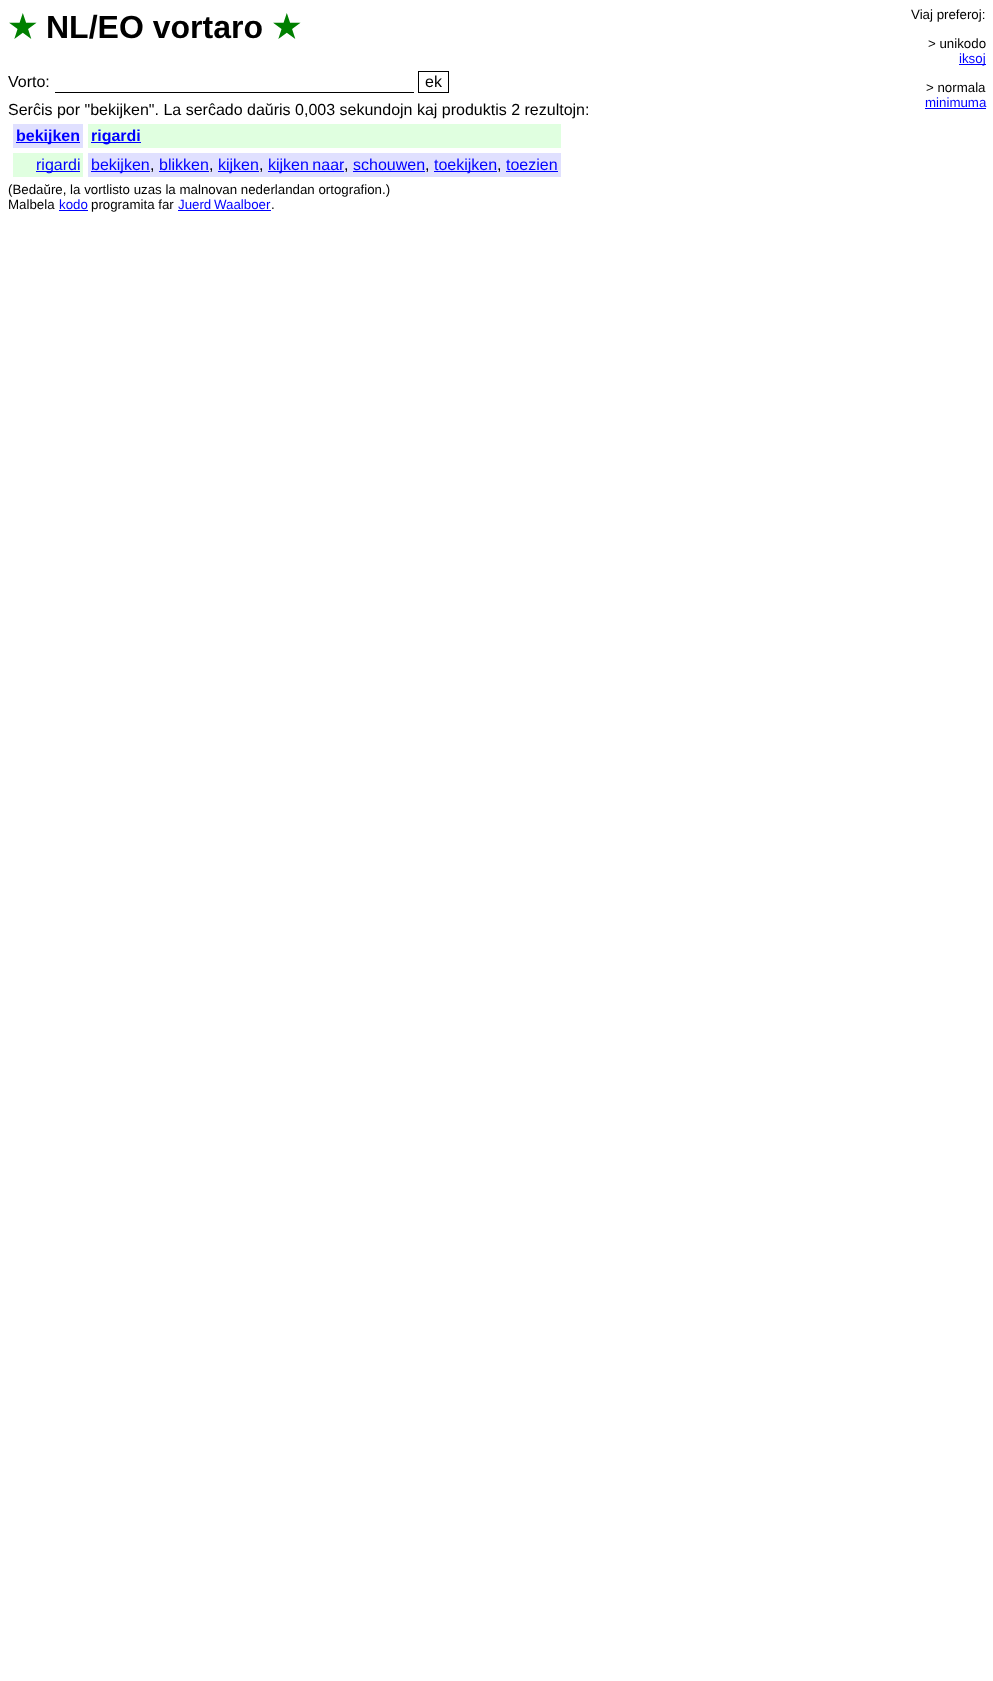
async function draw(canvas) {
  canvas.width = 993;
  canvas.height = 1681;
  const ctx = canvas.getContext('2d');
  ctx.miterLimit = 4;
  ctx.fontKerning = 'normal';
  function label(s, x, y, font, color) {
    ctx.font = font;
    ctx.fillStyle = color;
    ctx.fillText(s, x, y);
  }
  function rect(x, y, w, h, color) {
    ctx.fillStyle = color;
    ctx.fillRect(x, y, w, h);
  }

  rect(0, 0, 993, 1681, '#fff');
  label('★', 8, 38, 'bold 32px DejaVu Sans', '#008000');
  label('NL/EO vortaro', 46, 38, 'bold 32px Liberation Sans', '#000');
  label('★', 272, 38, 'bold 32px DejaVu Sans', '#008000');
  label('Viaj preferoj:', 911, 19, '13.3px Liberation Sans', '#000');
  label('> unikodo', 928, 48, '13.3px Liberation Sans', '#000');
  rect(959, 64, 27, 1, '#00f');
  label('iksoj', 959, 63, '13.3px Liberation Sans', '#00f');
  label('> normala', 926, 92, '13.3px Liberation Sans', '#000');
  label('minimuma', 925, 107, '13.3px Liberation Sans', '#00f');
  rect(925, 108, 61, 1, '#00f');
  label('Vorto:', 8, 87, '16px Liberation Sans', '#000');
  ctx.strokeStyle = '#000';
  ctx.strokeRect(418.5, 71.5, 30, 21);
  label('ek', 425, 87, '16px Liberation Sans', '#000');
  rect(55, 92, 359, 1, '#000');
  label('Serĉis por "bekijken". La serĉado daŭris 0,003 sekundojn kaj produktis 2 rezultojn:', 8, 115, '16px Liberation Sans', '#000');
  rect(13, 124, 70, 24, '#e0e0ff');
  rect(16, 142, 64, 1, '#00f');
  label('bekijken', 16, 141, 'bold 16px Liberation Sans', '#00f');
  rect(88, 124, 473, 24, '#e0ffe0');
  rect(91, 142, 50, 1, '#00f');
  label('rigardi', 91, 141, 'bold 16px Liberation Sans', '#00f');
  rect(13, 153, 70, 24, '#e0ffe0');
  rect(36, 171, 44, 1, '#00f');
  label('rigardi', 36, 170, '16px Liberation Sans', '#00f');
  rect(88, 153, 473, 24, '#e0e0ff');
  rect(91, 171, 59, 1, '#00f');
  label('bekijken', 91, 170, '16px Liberation Sans', '#00f');
  label(',', 150, 170, '16px Liberation Sans', '#000');
  label('blikken', 159, 170, '16px Liberation Sans', '#00f');
  rect(159, 171, 50, 1, '#00f');
  label(',', 209, 170, '16px Liberation Sans', '#000');
  rect(218, 171, 41, 1, '#00f');
  label('kijken', 218, 170, '16px Liberation Sans', '#00f');
  label(',', 259, 170, '16px Liberation Sans', '#000');
  rect(268, 171, 76, 1, '#00f');
  ctx.wordSpacing = '-1px';
  label('kijken naar', 268, 170, '16px Liberation Sans', '#00f');
  ctx.wordSpacing = '0px';
  label(',', 344, 170, '16px Liberation Sans', '#000');
  label('schouwen', 353, 170, '16px Liberation Sans', '#00f');
  rect(353, 171, 72, 1, '#00f');
  label(',', 425, 170, '16px Liberation Sans', '#000');
  rect(434, 171, 63, 1, '#00f');
  label('toekijken', 434, 170, '16px Liberation Sans', '#00f');
  label(',', 497, 170, '16px Liberation Sans', '#000');
  label('toezien', 506, 170, '16px Liberation Sans', '#00f');
  rect(506, 171, 52, 1, '#00f');
  label('(Bedaŭre, la vortlisto uzas la malnovan nederlandan ortografion.)', 8, 194, '13.3px Liberation Sans', '#000');
  label('Malbela', 8, 209, '13.3px Liberation Sans', '#000');
  label('kodo', 59, 209, '13.3px Liberation Sans', '#00f');
  rect(59, 210, 29, 1, '#00f');
  label('programita far', 91, 209, '13.3px Liberation Sans', '#000');
  ctx.wordSpacing = '-1px';
  label('Juerd Waalboer', 178, 209, '13.3px Liberation Sans', '#00f');
  ctx.wordSpacing = '0px';
  label('.', 271, 209, '13.3px Liberation Sans', '#000');
  rect(178, 210, 93, 1, '#00f');
}

draw(document.querySelector('canvas'));
